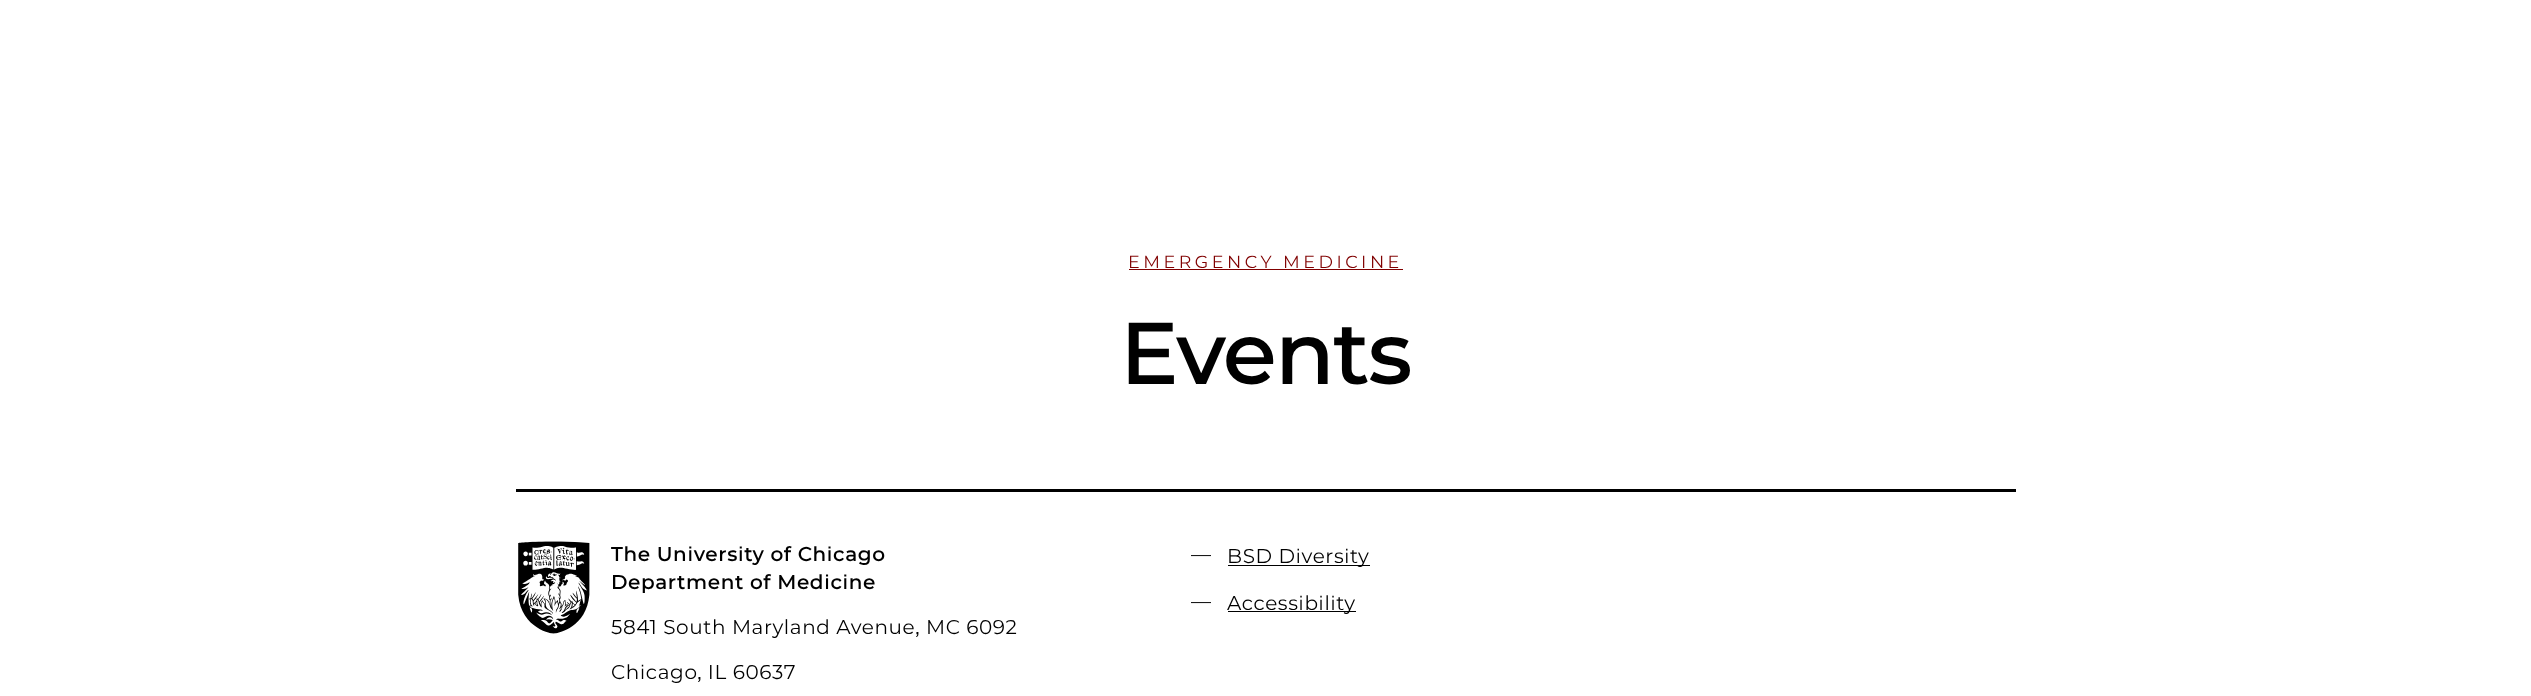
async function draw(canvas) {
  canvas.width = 2531;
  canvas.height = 696;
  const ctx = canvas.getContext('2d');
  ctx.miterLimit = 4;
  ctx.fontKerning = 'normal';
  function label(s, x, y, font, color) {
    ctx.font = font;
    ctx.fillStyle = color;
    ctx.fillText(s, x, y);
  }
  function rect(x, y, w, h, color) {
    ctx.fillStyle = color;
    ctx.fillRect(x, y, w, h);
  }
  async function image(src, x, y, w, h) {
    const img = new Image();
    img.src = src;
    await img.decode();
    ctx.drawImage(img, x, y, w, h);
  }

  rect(0, 0, 2531, 696, '#fff');
  ctx.letterSpacing = '3.5px';
  label('EMERGENCY MEDICINE', 1128, 268, '17.5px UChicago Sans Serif', '#800000');
  rect(1129, 269, 274, 1, '#800000');
  ctx.letterSpacing = '-1.75px';
  label('Events', 1120, 384, '600 87.5px UChicago Sans Serif', '#000');
  rect(516, 489, 1500, 3, '#000');
  await image('assets/img1.png', 518, 541, 72, 93);
  ctx.letterSpacing = '0.6px';
  label('The University of Chicago', 611, 561, '600 20px UChicago Sans Serif', '#000');
  label('Department of Medicine', 611, 589, '600 20px UChicago Sans Serif', '#000');
  label('5841 South Maryland Avenue, MC 6092', 611, 634, '20px UChicago Sans Serif', '#000');
  label('Chicago, IL 60637', 611, 679, '20px UChicago Sans Serif', '#000');
  label('—', 1191, 561, '20px UChicago Sans Serif', '#000');
  rect(1228, 565, 142, 1, '#000');
  label('BSD Diversity', 1227, 563, '20px UChicago Sans Serif', '#000');
  label('—', 1191, 608, '20px UChicago Sans Serif', '#000');
  rect(1228, 611, 128, 1, '#000');
  label('Accessibility', 1227, 610, '20px UChicago Sans Serif', '#000');
}

draw(document.querySelector('canvas'));
